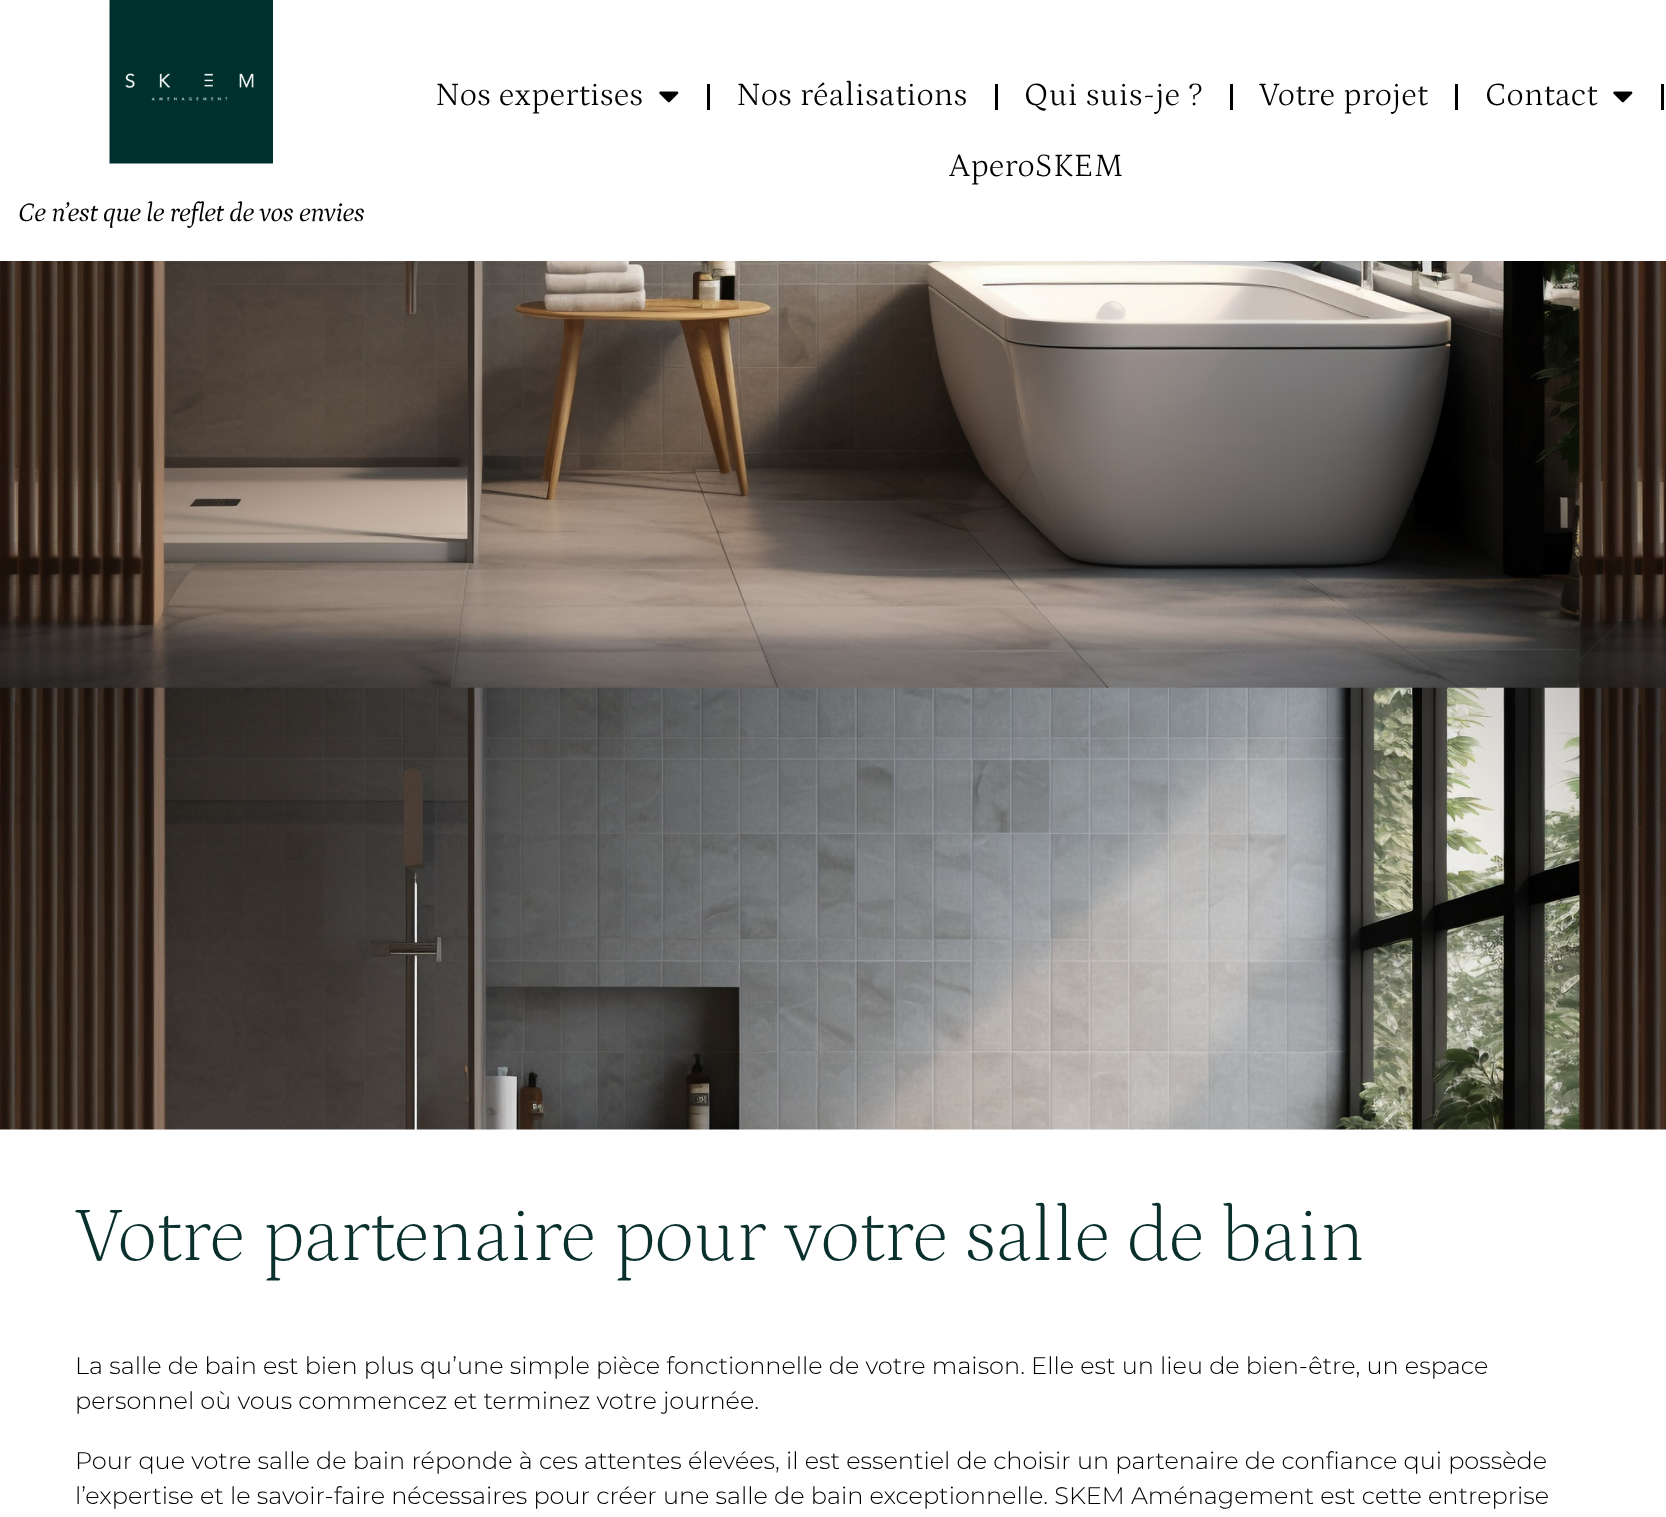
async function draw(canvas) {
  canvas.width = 1666;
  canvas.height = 1517;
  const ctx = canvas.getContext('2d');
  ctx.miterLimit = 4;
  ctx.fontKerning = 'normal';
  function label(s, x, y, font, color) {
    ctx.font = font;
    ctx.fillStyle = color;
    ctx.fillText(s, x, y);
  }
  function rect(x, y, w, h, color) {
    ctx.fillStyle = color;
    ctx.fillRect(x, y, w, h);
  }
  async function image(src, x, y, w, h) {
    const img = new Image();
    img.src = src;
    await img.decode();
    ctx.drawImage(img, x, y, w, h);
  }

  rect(0, 0, 1666, 1517, '#fff');
  ctx.letterSpacing = '0.5px';
  label('Nos expertises', 435, 105, '300 33px Petrona', '#000');
  await image('assets/img1.png', 659, 91, 20, 12);
  rect(707, 84, 3, 26, '#000');
  label('Nos réalisations', 736, 105, '300 33px Petrona', '#000');
  rect(995, 84, 3, 26, '#000');
  label('Qui suis-je ?', 1024, 105, '300 33px Petrona', '#000');
  rect(1230, 84, 3, 26, '#000');
  label('Votre projet', 1259, 105, '300 33px Petrona', '#000');
  rect(1455, 84, 3, 26, '#000');
  label('Contact', 1485, 105, '300 33px Petrona', '#000');
  await image('assets/img1.png', 1613, 91, 20, 12);
  rect(1661, 84, 3, 26, '#000');
  label('AperoSKEM', 949, 176, '300 33px Petrona', '#000');
  await image('assets/img2.png', 109, 0, 164, 164);
  ctx.letterSpacing = '-0.4px';
  label('Ce n’est que le reflet de vos envies', 18, 221, 'italic 27px Petrona', '#000');
  await image('assets/img3.png', 0, 261, 1666, 869);
  ctx.letterSpacing = '0px';
  label('Votre partenaire pour votre salle de bain', 75, 1260, '200 78px Petrona', '#09302d');
  label('La salle de bain est bien plus qu’une simple pièce fonctionnelle de votre maison. Elle est un lieu de bien-être, un espace', 75, 1374, '300 24px Montserrat', '#000');
  label('personnel où vous commencez et terminez votre journée.', 75, 1409, '300 24px Montserrat', '#000');
  label('Pour que votre salle de bain réponde à ces attentes élevées, il est essentiel de choisir un partenaire de confiance qui possède', 75, 1469, '300 24px Montserrat', '#000');
  label('l’expertise et le savoir-faire nécessaires pour créer une salle de bain exceptionnelle. SKEM Aménagement est cette entreprise', 75, 1504, '300 24px Montserrat', '#000');
}

draw(document.querySelector('canvas'));
